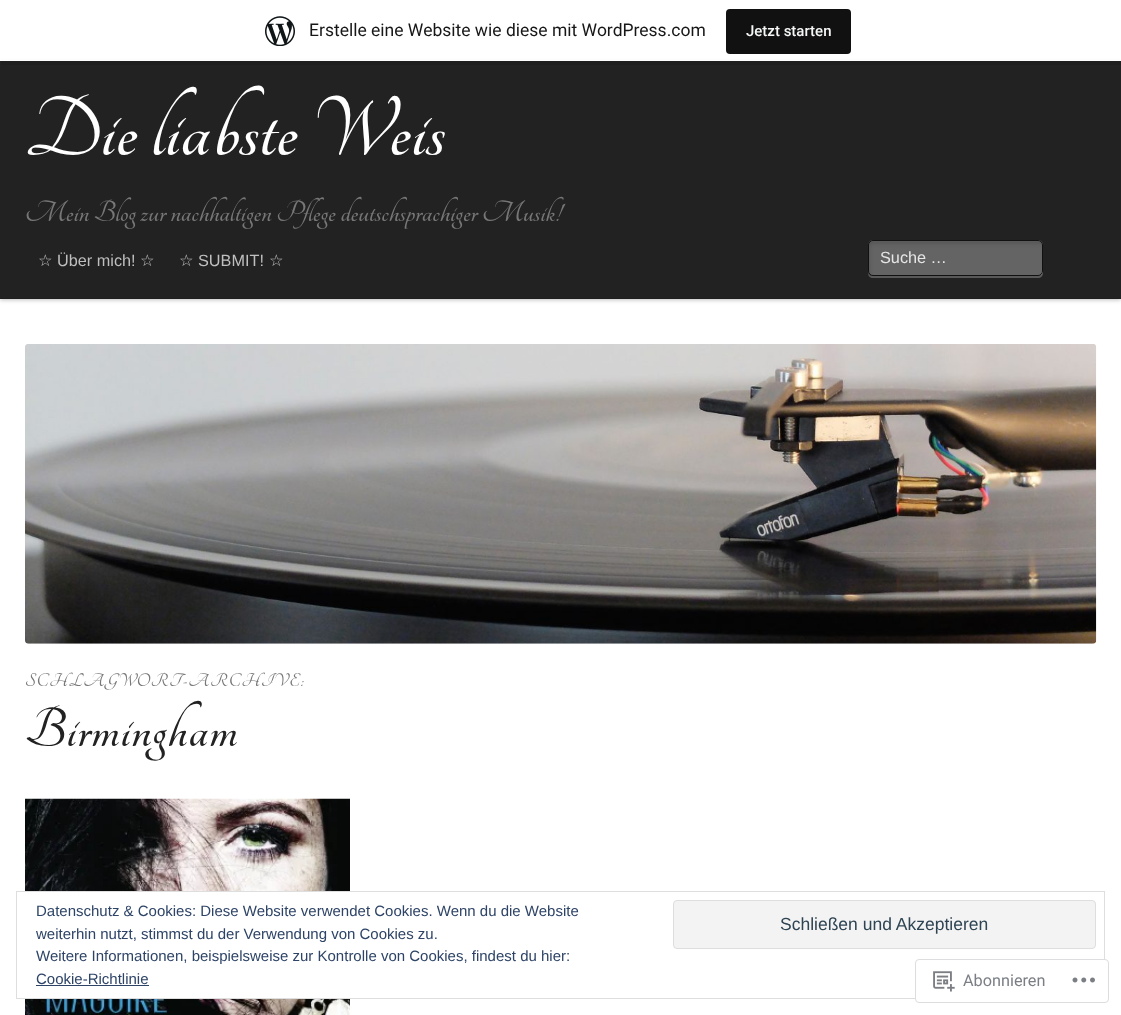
async function draw(canvas) {
  canvas.width = 1121;
  canvas.height = 1015;
  const ctx = canvas.getContext('2d');
  ctx.miterLimit = 4;
  ctx.fontKerning = 'normal';
  function label(s, x, y, font, color) {
    ctx.font = font;
    ctx.fillStyle = color;
    ctx.fillText(s, x, y);
  }
  function rect(x, y, w, h, color) {
    ctx.fillStyle = color;
    ctx.fillRect(x, y, w, h);
  }
  function roundedRect(x, y, w, h, r, color) {
    ctx.fillStyle = color;
    ctx.beginPath();
    ctx.roundRect(x, y, w, h, r);
    ctx.fill();
  }
  async function image(src, x, y, w, h) {
    const img = new Image();
    img.src = src;
    await img.decode();
    ctx.drawImage(img, x, y, w, h);
  }
  let path;

  rect(0, 0, 1121, 1015, '#fff');
  ctx.fillStyle = '#00000040';
  ctx.filter = 'blur(2px)';
  ctx.beginPath();
  ctx.rect(0, 63, 1121, 237);
  ctx.fill();
  ctx.filter = 'none';
  rect(0, 61, 1121, 237, '#222');
  ctx.fillStyle = '#1f1f1f';
  path = new Path2D('M1 61V65H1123V4H1121V61Z');
  ctx.fill(path);
  rect(0, 60, 1121, 1, '#fff');
  await image('assets/img1.png', 265, 16, 30, 30);
  label('Erstelle eine Website wie diese mit WordPress.com', 309, 36, '17.5px Roboto', '#171717');
  roundedRect(726, 9, 125, 45, 4, '#111');
  label('Jetzt starten', 746, 36, '500 15px Roboto', '#f6f7f7');
  rect(0, 298, 1121, 1, '#1f1f1f');
  label('Die liabste Weis', 25, 155, 'bold 92px Tangerine', '#fff');
  label('Mein Blog zur nachhaltigen Pflege deutschsprachiger Musik!', 25, 221, 'bold 32px Tangerine', '#777');
  label('☆', 38, 266, '16.25px DejaVu Sans', '#bfbfbf');
  label('Über mich!', 57, 266, '16.25px Liberation Sans', '#bfbfbf');
  label('☆', 140, 266, '16.25px DejaVu Sans', '#bfbfbf');
  label('☆', 179, 266, '16.25px DejaVu Sans', '#bfbfbf');
  label('SUBMIT!', 198, 266, '16.25px Liberation Sans', '#bfbfbf');
  label('☆', 269, 266, '16.25px DejaVu Sans', '#bfbfbf');
  ctx.fillStyle = '#595959';
  path = new Path2D('M868 273C868 276 870 278 873 278H1038C1041 278 1043 276 1043 273V246L1042 243V271C1042 274 1040 276 1038 276H872C871 276 869 275 868 273Z');
  ctx.fill(path);
  roundedRect(868, 240, 175, 36, 5, '#ffffff4d');
  await image('assets/img2.png', 868, 241, 174, 34);
  ctx.beginPath();
  ctx.roundRect(868.5, 240.5, 174, 35, 4.5);
  ctx.strokeStyle = '#111';
  ctx.stroke();
  label('Suche …', 880, 263, '16.25px Liberation Sans', '#e6e6e6');
  await image('assets/img3.png', 25, 344, 1072, 300);
  ctx.letterSpacing = '1.25px';
  label('SCHLAGWORT-ARCHIVE:', 25, 686, 'bold 20px Tangerine', '#777');
  label('Birmingham', 25, 746, 'bold 60px Tangerine', '#222');
  await image('assets/img4.png', 25, 798, 325, 217);
  rect(25, 892, 325, 106, '#fff');
  ctx.strokeStyle = '#dedede';
  ctx.strokeRect(16.5, 891.5, 1088, 107);
  ctx.letterSpacing = '0px';
  label('Datenschutz & Cookies: Diese Website verwendet Cookies. Wenn du die Website', 36, 916, '15px Liberation Sans', '#2e4467');
  ctx.fillStyle = '#f3f3f3';
  ctx.beginPath();
  ctx.roundRect(673.5, 900.5, 422, 48, 3.5);
  ctx.fill();
  ctx.stroke();
  label('Schließen und Akzeptieren', 780, 930, '17.5px Liberation Sans', '#2e4453');
  label('weiterhin nutzt, stimmst du der Verwendung von Cookies zu.', 36, 939, '15px Liberation Sans', '#2e4467');
  label('Weitere Informationen, beispielsweise zur Kontrolle von Cookies, findest du hier:', 36, 961, '15px Liberation Sans', '#2e4467');
  label('Cookie-Richtlinie', 36, 984, '15px Liberation Sans', '#2e4467');
  rect(36, 985, 113, 1, '#2e4467');
  ctx.fillStyle = '#fffffffa';
  ctx.beginPath();
  ctx.roundRect(915.5, 959.5, 193, 43, 3.5);
  ctx.fill();
  ctx.strokeStyle = '#dddddf';
  ctx.stroke();
  await image('assets/img5.png', 933, 971, 22, 21);
  label('Abonnieren', 963, 986, '16.25px Roboto', '#7b7f85');
  await image('assets/img6.png', 1072, 977, 23, 6);
}

draw(document.querySelector('canvas'));
